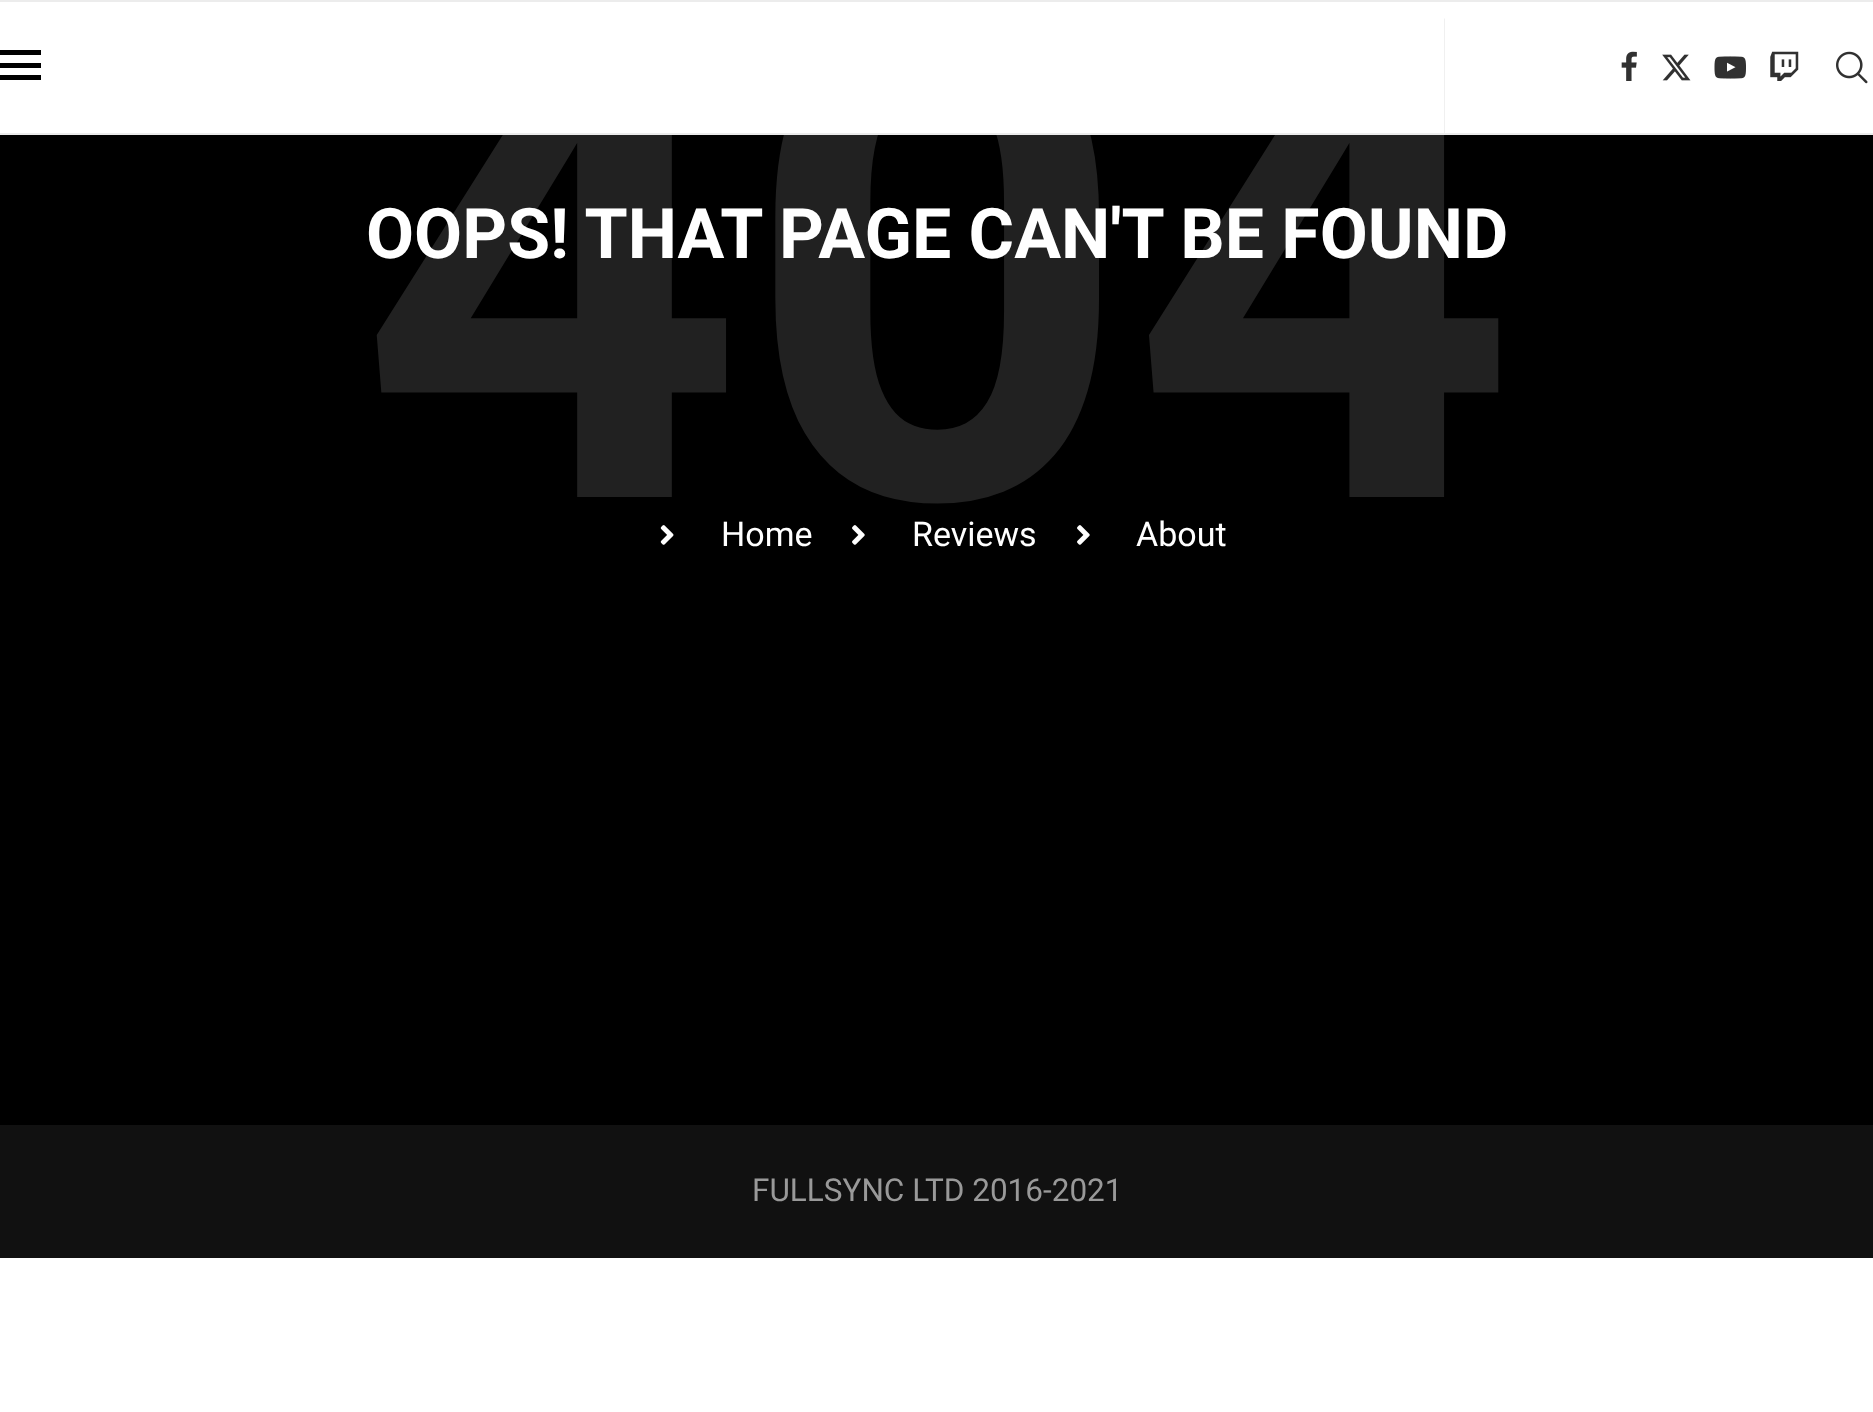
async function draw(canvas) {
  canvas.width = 1873;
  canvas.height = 1412;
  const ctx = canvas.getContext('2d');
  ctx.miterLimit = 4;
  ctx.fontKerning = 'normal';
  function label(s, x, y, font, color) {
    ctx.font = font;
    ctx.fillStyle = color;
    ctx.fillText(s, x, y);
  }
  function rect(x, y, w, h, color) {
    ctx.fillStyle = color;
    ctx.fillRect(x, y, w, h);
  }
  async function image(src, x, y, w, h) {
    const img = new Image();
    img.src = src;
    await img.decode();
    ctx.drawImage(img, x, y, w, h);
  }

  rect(0, 0, 1873, 1412, '#fff');
  rect(0, 135, 1873, 990, '#000');
  label('404', 358, 497, 'bold 673px Roboto', '#212121');
  rect(504, 12, 940, 121, '#fff');
  rect(0, 0, 1873, 2, '#ececec');
  rect(0, 133, 1873, 2, '#ececec');
  rect(0, 50, 41, 5, '#000');
  rect(0, 63, 41, 5, '#000');
  rect(0, 75, 41, 5, '#000');
  await image('assets/img1.png', 1621, 51, 16, 30);
  await image('assets/img2.png', 1662, 54, 29, 27);
  await image('assets/img3.png', 1714, 56, 32, 23);
  await image('assets/img4.png', 1770, 51, 29, 30);
  await image('assets/img5.png', 1836, 51, 32, 33);
  label('OOPS! THAT PAGE CAN\'T BE FOUND', 366, 258, 'bold 69.75px Roboto', '#fff');
  await image('assets/img6.png', 660, 525, 14, 20);
  label('Home', 721, 546, '34px Roboto', '#fff');
  await image('assets/img7.png', 852, 525, 13, 20);
  label('Reviews', 912, 546, '34px Roboto', '#fff');
  await image('assets/img7.png', 1077, 525, 13, 20);
  label('About', 1136, 546, '34px Roboto', '#fff');
  rect(0, 1125, 1873, 133, '#111');
  label('FULLSYNC LTD 2016-2021', 752, 1201, '31.5px Roboto', '#999');
}

draw(document.querySelector('canvas'));
